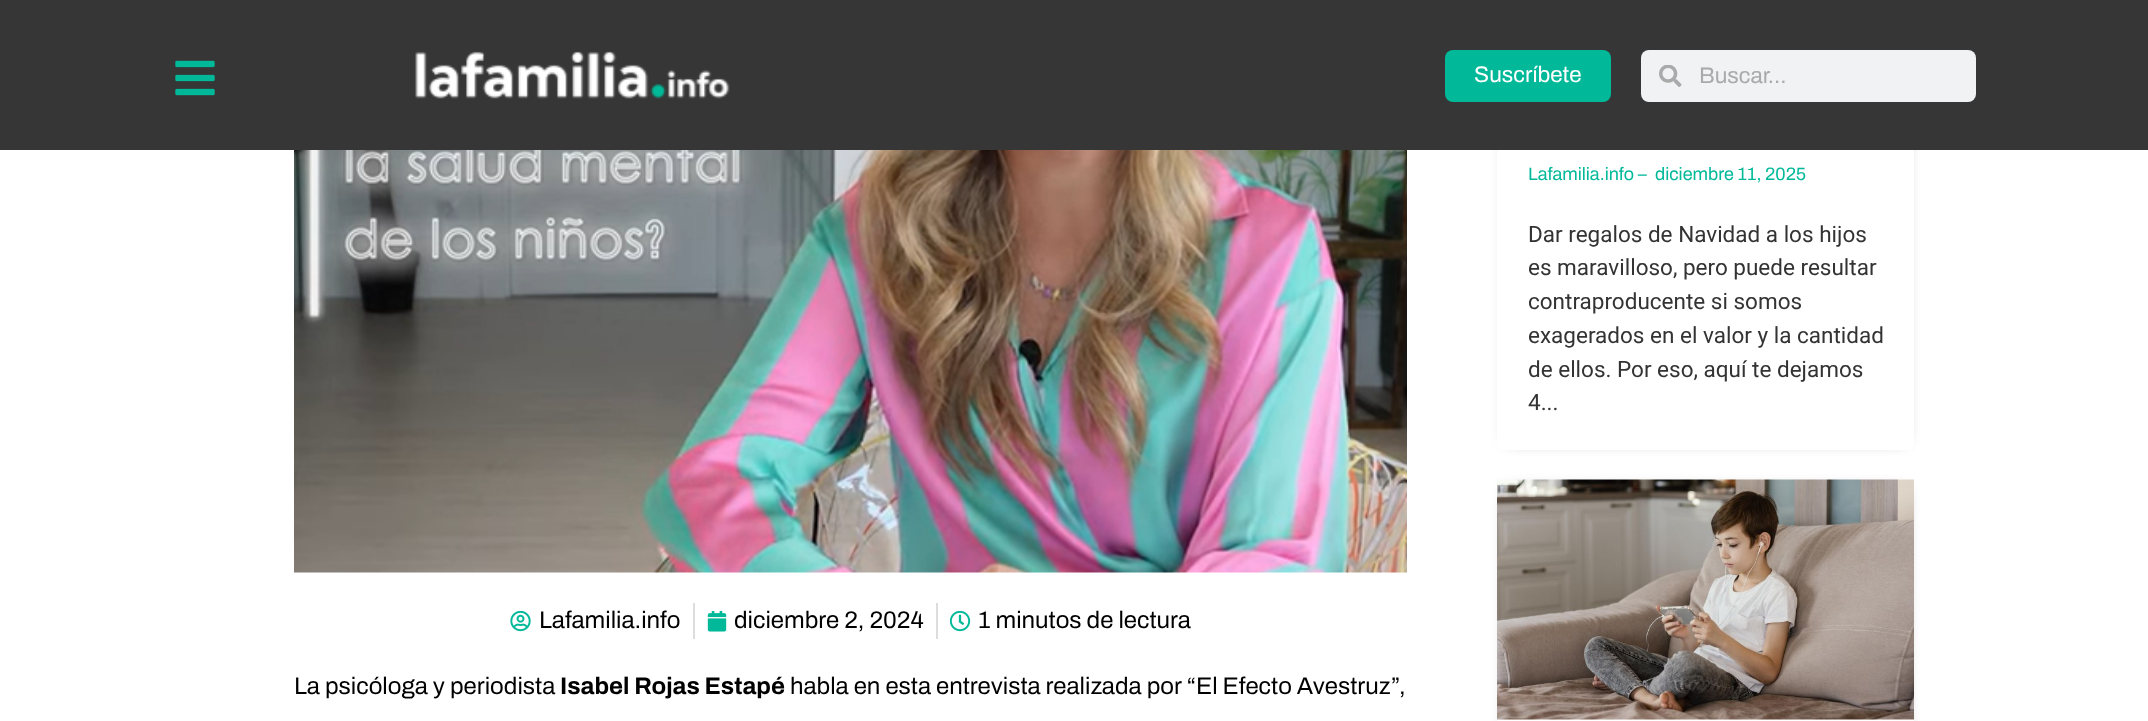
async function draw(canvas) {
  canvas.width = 2148;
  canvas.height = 721;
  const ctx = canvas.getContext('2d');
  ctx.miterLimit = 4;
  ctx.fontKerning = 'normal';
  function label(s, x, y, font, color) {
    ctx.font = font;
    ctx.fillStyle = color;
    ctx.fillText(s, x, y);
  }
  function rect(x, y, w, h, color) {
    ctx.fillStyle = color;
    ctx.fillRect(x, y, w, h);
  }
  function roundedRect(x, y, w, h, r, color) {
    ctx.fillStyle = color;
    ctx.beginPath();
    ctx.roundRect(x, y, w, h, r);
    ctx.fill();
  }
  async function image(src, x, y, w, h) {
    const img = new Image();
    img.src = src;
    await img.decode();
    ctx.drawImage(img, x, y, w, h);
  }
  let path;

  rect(0, 0, 2148, 721, '#fff');
  ctx.save();
  path = new Path2D('M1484 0H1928V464H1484ZM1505-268H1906C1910.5-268 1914-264.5 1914-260V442C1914 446.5 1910.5 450 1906 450H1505C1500.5 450 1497 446.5 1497 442V-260C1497-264.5 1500.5-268 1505-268Z');
  ctx.clip(path, 'evenodd');
  ctx.fillStyle = '#00000080';
  ctx.filter = 'blur(7.5px)';
  ctx.beginPath();
  ctx.rect(1508, -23, 396, 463);
  ctx.fill();
  ctx.filter = 'none';
  ctx.restore();
  rect(0, 0, 2148, 150, '#363636');
  await image('assets/img1.png', 175, 60, 40, 36);
  await image('assets/img2.png', 415, 51, 315, 48);
  roundedRect(1445, 50, 166, 52, 8, '#01b999');
  label('Suscríbete', 1474, 82, '22.5px Archivo', '#fff');
  roundedRect(1641, 50, 335, 52, 8, '#f1f2f3');
  await image('assets/img3.png', 1659, 65, 23, 22);
  label('Buscar...', 1699, 83, '22.5px Archivo', '#aaa');
  label('Lafamilia.info –', 1528, 180, '18px Archivo', '#01b999');
  label('diciembre 11, 2025', 1655, 180, '18px Archivo', '#01b999');
  label('Dar regalos de Navidad a los hijos', 1528, 242, '22.5px Roboto', '#333');
  label('es maravilloso, pero puede resultar', 1528, 275, '22.5px Roboto', '#333');
  label('contraproducente si somos', 1528, 309, '22.5px Roboto', '#333');
  label('exagerados en el valor y la cantidad', 1528, 343, '22.5px Roboto', '#333');
  label('de ellos. Por eso, aquí te dejamos', 1528, 377, '22.5px Roboto', '#333');
  label('4...', 1528, 410, '22.5px Roboto', '#333');
  ctx.save();
  path = new Path2D('M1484 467H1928V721H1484ZM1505 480H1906C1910.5 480 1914 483.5 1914 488V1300C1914 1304.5 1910.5 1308 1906 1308H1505C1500.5 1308 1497 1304.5 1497 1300V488C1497 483.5 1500.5 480 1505 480Z');
  ctx.clip(path, 'evenodd');
  ctx.fillStyle = '#00000080';
  ctx.filter = 'blur(7.5px)';
  ctx.beginPath();
  ctx.rect(1508, 491, 396, 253);
  ctx.fill();
  ctx.filter = 'none';
  ctx.restore();
  await image('assets/img4.png', 1497, 479, 417, 241);
  await image('assets/img5.png', 294, 150, 1113, 423);
  await image('assets/img6.png', 510, 611, 21, 21);
  label('Lafamilia.info', 539, 628, '24px Archivo', '#000');
  rect(693, 603, 2, 36, '#ddd');
  await image('assets/img7.png', 707, 611, 20, 21);
  label('diciembre 2, 2024', 734, 628, '24px Archivo', '#000');
  rect(936, 603, 2, 36, '#ddd');
  await image('assets/img8.png', 950, 611, 21, 21);
  label('1 minutos de lectura', 978, 628, '24px Archivo', '#000');
  label('La psicóloga y periodista', 294, 694, '24px Archivo', '#000');
  label('Isabel Rojas Estapé', 560, 694, 'bold 24px Archivo', '#000');
  label('habla en esta entrevista realizada por “El Efecto Avestruz”,', 790, 694, '24px Archivo', '#000');
}

draw(document.querySelector('canvas'));
